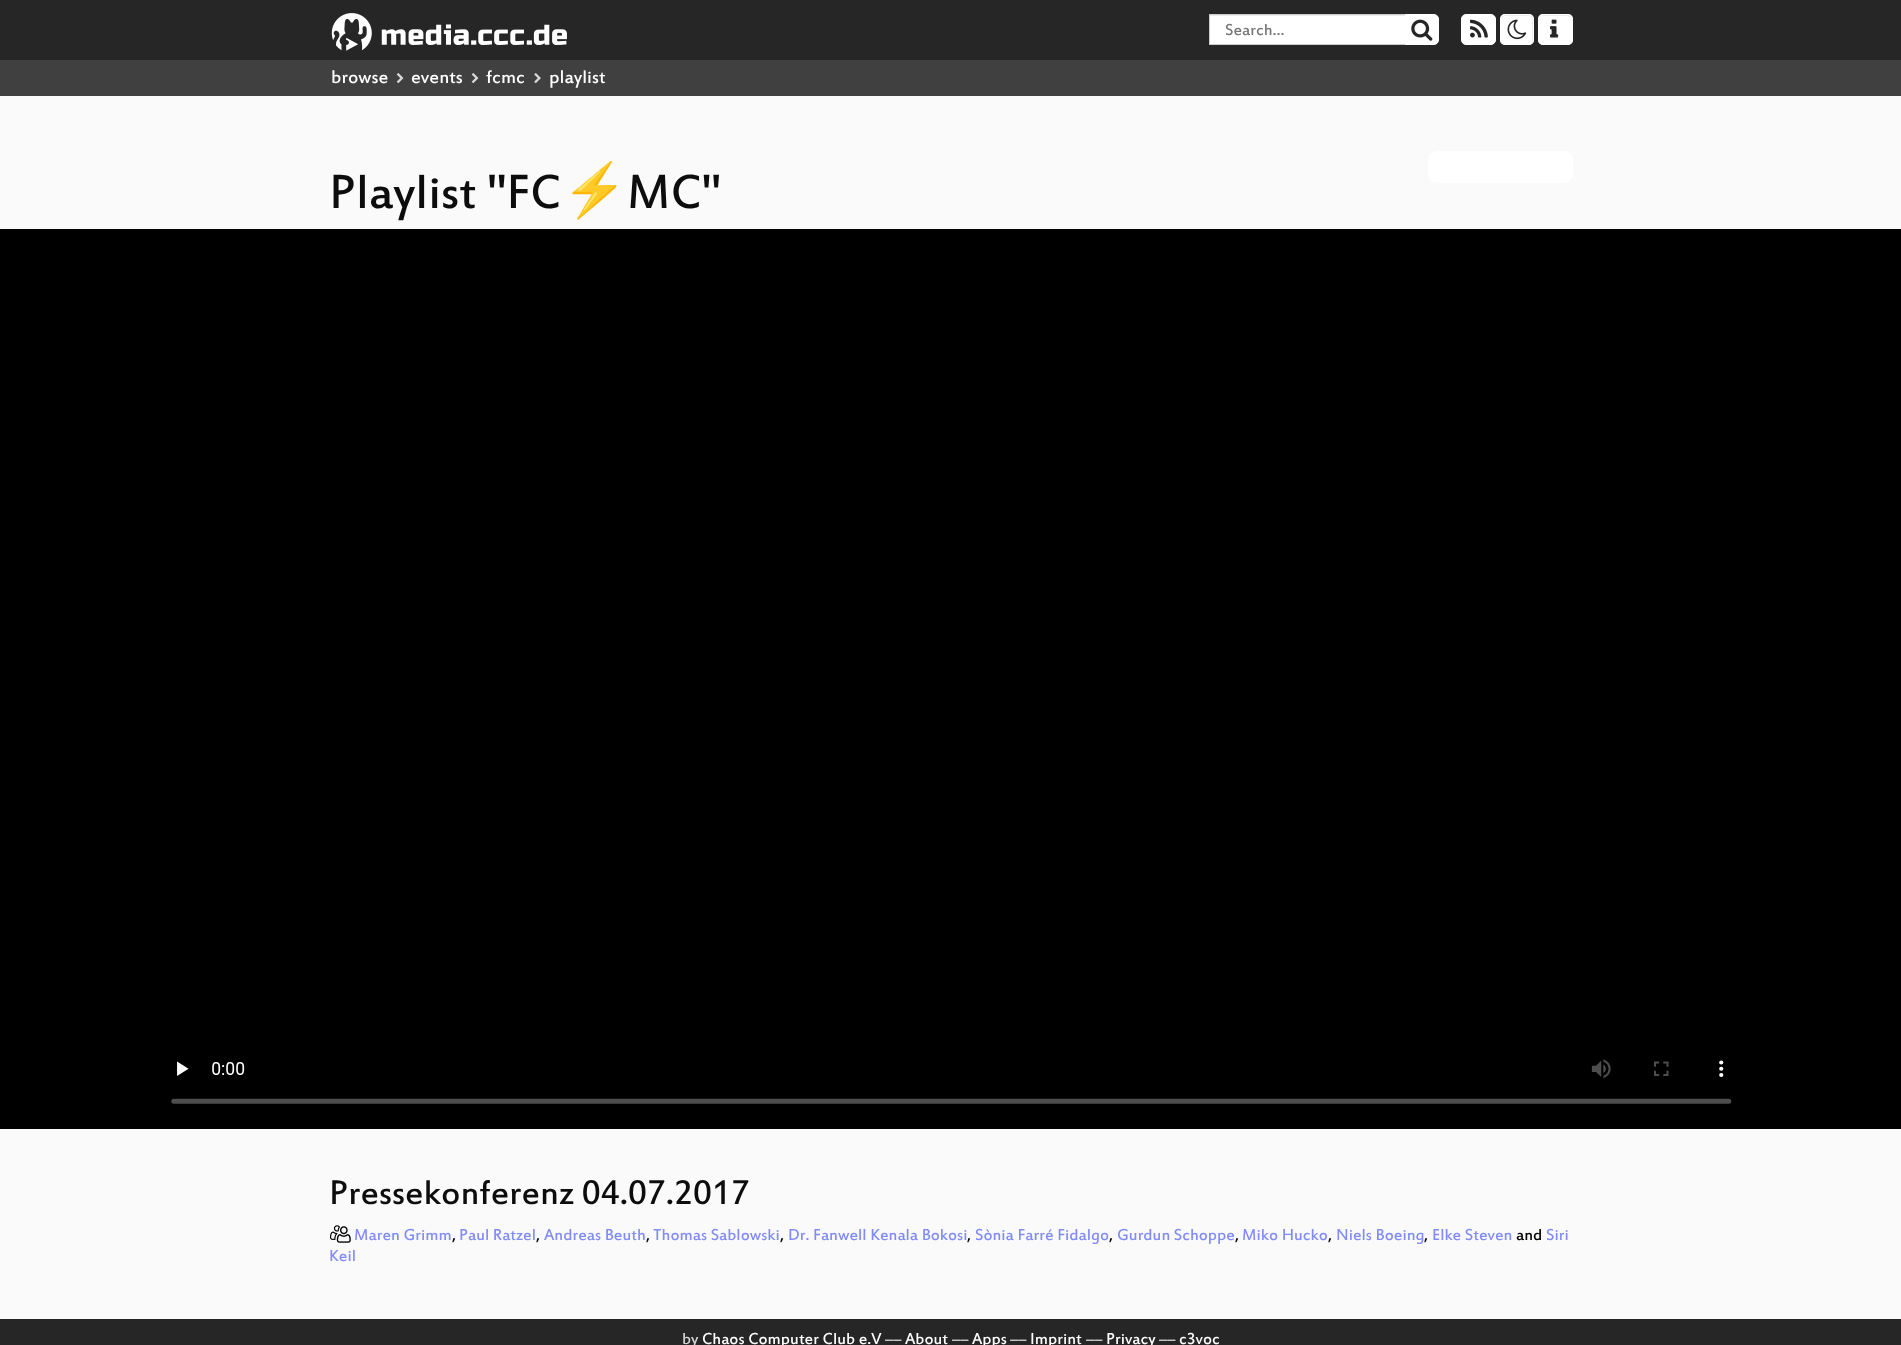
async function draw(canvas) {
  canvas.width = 1901;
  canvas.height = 1345;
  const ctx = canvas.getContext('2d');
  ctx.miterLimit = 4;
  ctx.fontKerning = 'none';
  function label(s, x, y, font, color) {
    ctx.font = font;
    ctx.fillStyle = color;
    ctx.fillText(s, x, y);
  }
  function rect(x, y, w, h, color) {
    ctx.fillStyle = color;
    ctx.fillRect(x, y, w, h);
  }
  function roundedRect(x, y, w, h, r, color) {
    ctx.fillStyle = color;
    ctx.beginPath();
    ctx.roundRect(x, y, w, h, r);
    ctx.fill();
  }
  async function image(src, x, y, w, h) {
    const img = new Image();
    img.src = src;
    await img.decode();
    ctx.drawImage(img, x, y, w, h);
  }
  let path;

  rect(0, 0, 1901, 1345, '#fafafa');
  rect(0, 0, 1901, 60, '#262626');
  await image('assets/img1.png', 331, 13, 236, 38);
  rect(1210, 16, 195, 28, '#fff');
  rect(1210, 15, 195, 1, '#ececec');
  ctx.strokeStyle = '#ccc';
  ctx.strokeRect(1209.5, 14.5, 196, 30);
  label('Search…', 1225, 35, '17.5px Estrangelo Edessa', '#777');
  ctx.fillStyle = '#fff';
  ctx.beginPath();
  ctx.roundRect(1405.5, 14.5, 33, 30, [0, 4.5, 4.5, 0]);
  ctx.fill();
  ctx.strokeStyle = '#fff';
  ctx.stroke();
  await image('assets/img2.png', 1411, 19, 22, 22);
  ctx.beginPath();
  ctx.roundRect(1461.5, 14.5, 34, 30, 4.5);
  ctx.fill();
  ctx.stroke();
  await image('assets/img3.png', 1470, 19, 18, 19);
  roundedRect(1500, 14, 34, 31, 5, '#fff');
  ctx.fillStyle = '#ececec';
  path = new Path2D('M1505 16H1529C1531 16 1532 18 1532 20V41L1531.5 43C1533.5 41.5 1533 38.5 1533 36.5V29.5C1533 12.5 1534.5 15 1517 15H1509C1504.5 15 1501 14.5 1501 20C1501 18 1503 16 1505 16Z');
  ctx.fill(path);
  ctx.beginPath();
  ctx.roundRect(1500.5, 14.5, 33, 30, 4.5);
  ctx.stroke();
  await image('assets/img4.png', 1507, 19, 20, 21);
  roundedRect(1538, 14, 35, 31, 5, '#fff');
  ctx.fillStyle = '#ececec';
  path = new Path2D('M1542 16H1563C1568.5 16 1570.5 16.5 1571 19C1571 16.5 1569 15 1567 15H1543C1541 15 1539 16.5 1539 19C1539.5 17 1540 16 1542 16ZM1539 41V38Z');
  ctx.fill(path, 'evenodd');
  ctx.beginPath();
  ctx.roundRect(1538.5, 14.5, 34, 30, 4.5);
  ctx.stroke();
  await image('assets/img5.png', 1550, 19, 9, 19);
  rect(0, 60, 1901, 36, '#404040');
  label('browse', 331, 83, '20px Estrangelo Edessa', '#fff');
  await image('assets/img6.png', 396, 73, 8, 11);
  label('events', 411, 83, '20px Estrangelo Edessa', '#fff');
  await image('assets/img6.png', 471, 73, 8, 11);
  label('fcmc', 486, 83, '20px Estrangelo Edessa', '#fff');
  await image('assets/img7.png', 534, 73, 7, 11);
  label('playlist', 549, 83, '20px Estrangelo Edessa', '#fff');
  label('Playlist "FC', 329, 208, '52.5px Estrangelo Edessa', '#0d0d0d');
  label('⚡', 562, 208, '52.5px Noto Color Emoji', '#0d0d0d');
  label('MC"', 627, 208, '52.5px Estrangelo Edessa', '#0d0d0d');
  roundedRect(1428, 151, 145, 32, 9, '#fff');
  rect(0, 229, 1901, 900, '#000');
  await image('assets/img8.png', 171, 1059, 1561, 45);
  label('Pressekonferenz 04.07.2017', 329, 1204, '37.5px Estrangelo Edessa', '#0d0d0d');
  await image('assets/img9.png', 330, 1225, 21, 18);
  label('Maren Grimm', 354, 1240, '17.5px Estrangelo Edessa', '#818cf8');
  label(',', 452, 1240, '17.5px Estrangelo Edessa', '#000');
  label('Paul Ratzel', 459, 1240, '17.5px Estrangelo Edessa', '#818cf8');
  label(',', 536, 1240, '17.5px Estrangelo Edessa', '#000');
  label('Andreas Beuth', 544, 1240, '17.5px Estrangelo Edessa', '#818cf8');
  label(',', 646, 1240, '17.5px Estrangelo Edessa', '#000');
  label('Thomas Sablowski', 653, 1240, '17.5px Estrangelo Edessa', '#818cf8');
  label(',', 780, 1240, '17.5px Estrangelo Edessa', '#000');
  label('Dr. Fanwell Kenala Bokosi', 788, 1240, '17.5px Estrangelo Edessa', '#818cf8');
  label(',', 967, 1240, '17.5px Estrangelo Edessa', '#000');
  label('Sònia Farré Fidalgo', 975, 1240, '17.5px Estrangelo Edessa', '#818cf8');
  label(',', 1109, 1240, '17.5px Estrangelo Edessa', '#000');
  label('Gurdun Schoppe', 1117, 1240, '17.5px Estrangelo Edessa', '#818cf8');
  label(',', 1235, 1240, '17.5px Estrangelo Edessa', '#000');
  label('Miko Hucko', 1242, 1240, '17.5px Estrangelo Edessa', '#818cf8');
  label(',', 1328, 1240, '17.5px Estrangelo Edessa', '#000');
  label('Niels Boeing', 1336, 1240, '17.5px Estrangelo Edessa', '#818cf8');
  label(',', 1424, 1240, '17.5px Estrangelo Edessa', '#000');
  label('Elke Steven', 1432, 1240, '17.5px Estrangelo Edessa', '#818cf8');
  label('and', 1516, 1240, '17.5px Estrangelo Edessa', '#000');
  label('Siri', 1546, 1240, '17.5px Estrangelo Edessa', '#818cf8');
  label('Keil', 329, 1261, '17.5px Estrangelo Edessa', '#818cf8');
  rect(0, 1319, 1901, 26, '#262626');
  label('by', 682, 1344, '17.5px Estrangelo Edessa', '#d4d4d4');
  label('Chaos Computer Club e.V', 702, 1344, '17.5px Estrangelo Edessa', '#fff');
  label('––', 885, 1344, '17.5px Estrangelo Edessa', '#d4d4d4');
  label('About', 905, 1344, '17.5px Estrangelo Edessa', '#fff');
  label('––', 952, 1344, '17.5px Estrangelo Edessa', '#d4d4d4');
  label('Apps', 972, 1344, '17.5px Estrangelo Edessa', '#fff');
  label('––', 1010, 1344, '17.5px Estrangelo Edessa', '#d4d4d4');
  label('Imprint', 1030, 1344, '17.5px Estrangelo Edessa', '#fff');
  label('––', 1086, 1344, '17.5px Estrangelo Edessa', '#d4d4d4');
  label('Privacy', 1106, 1344, '17.5px Estrangelo Edessa', '#fff');
  label('––', 1159, 1344, '17.5px Estrangelo Edessa', '#d4d4d4');
  label('c3voc', 1179, 1344, '17.5px Estrangelo Edessa', '#fff');
}

draw(document.querySelector('canvas'));
